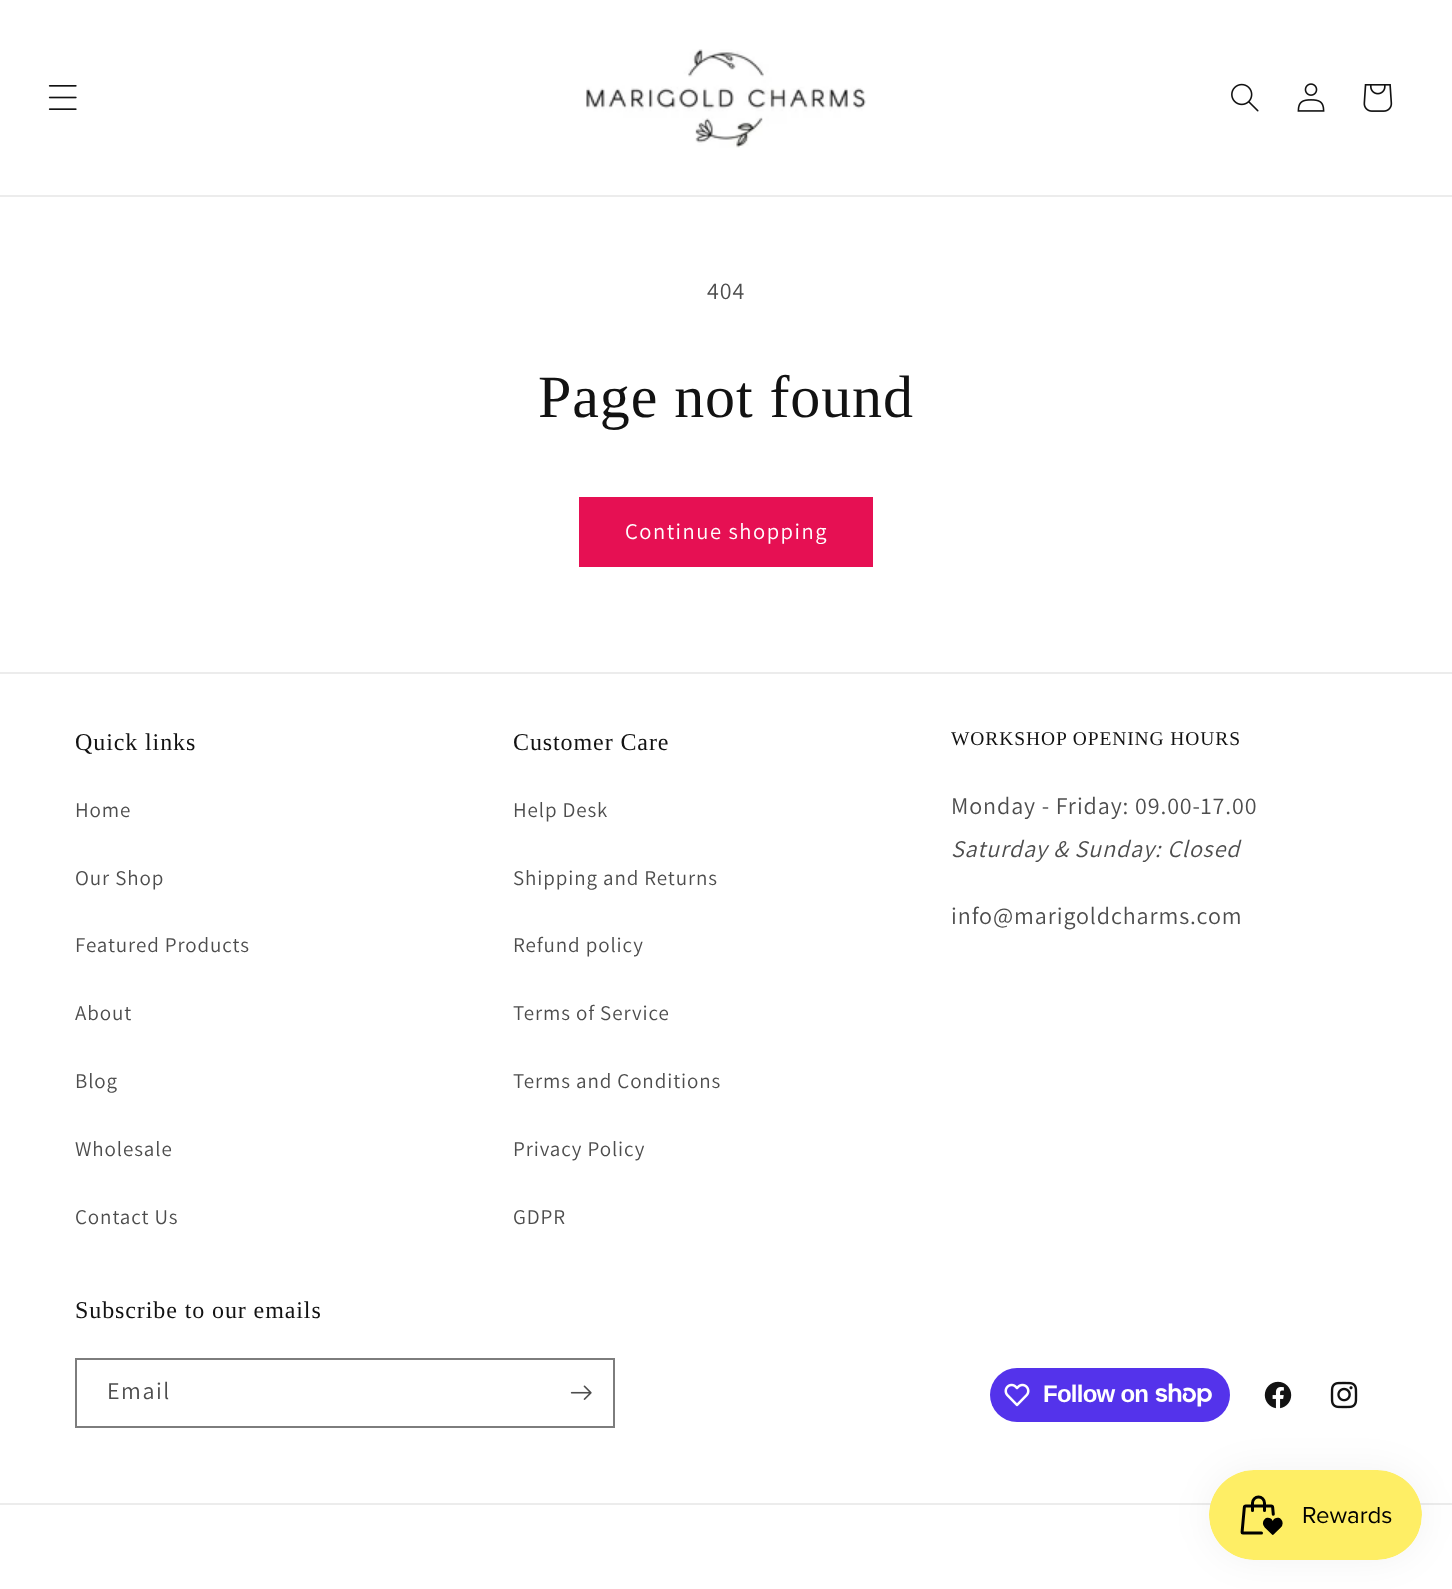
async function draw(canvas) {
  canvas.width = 1452;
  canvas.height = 1589;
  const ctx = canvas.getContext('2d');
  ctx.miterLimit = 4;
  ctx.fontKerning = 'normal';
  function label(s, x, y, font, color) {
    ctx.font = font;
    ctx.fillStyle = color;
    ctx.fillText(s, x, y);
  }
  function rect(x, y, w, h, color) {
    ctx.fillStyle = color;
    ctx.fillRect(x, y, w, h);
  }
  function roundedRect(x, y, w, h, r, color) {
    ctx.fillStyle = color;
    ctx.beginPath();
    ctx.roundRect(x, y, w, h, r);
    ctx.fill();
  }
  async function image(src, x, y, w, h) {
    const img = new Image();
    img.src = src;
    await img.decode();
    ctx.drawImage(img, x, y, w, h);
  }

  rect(0, 0, 1452, 1589, '#fff');
  rect(0, 195, 1452, 2, '#ececec');
  await image('assets/img1.png', 48, 85, 29, 25);
  await image('assets/img2.png', 586, 49, 280, 99);
  await image('assets/img3.png', 1231, 83, 28, 29);
  await image('assets/img4.png', 1297, 83, 28, 29);
  await image('assets/img5.png', 1363, 84, 30, 28);
  ctx.letterSpacing = '0.9px';
  label('404', 707, 299, '24px Assistant', '#4d4d4d');
  label('Page not found', 538, 417, '60px Liberation Serif', '#121212');
  rect(579, 497, 294, 70, '#e61053');
  ctx.letterSpacing = '1.5px';
  label('Continue shopping', 625, 539, '22.5px Assistant', '#fff');
  rect(0, 672, 1452, 2, '#ececec');
  ctx.letterSpacing = '0.9px';
  label('Quick links', 75, 750, '24px Liberation Serif', '#121212');
  label('Home', 75, 817, '21px Assistant', '#4d4d4d');
  label('Our Shop', 75, 885, '21px Assistant', '#4d4d4d');
  label('Featured Products', 75, 952, '21px Assistant', '#4d4d4d');
  label('About', 75, 1020, '21px Assistant', '#4d4d4d');
  label('Blog', 75, 1088, '21px Assistant', '#4d4d4d');
  label('Wholesale', 75, 1156, '21px Assistant', '#4d4d4d');
  label('Contact Us', 75, 1224, '21px Assistant', '#4d4d4d');
  label('Customer Care', 513, 750, '24px Liberation Serif', '#121212');
  label('Help Desk', 513, 817, '21px Assistant', '#4d4d4d');
  label('Shipping and Returns', 513, 885, '21px Assistant', '#4d4d4d');
  label('Refund policy', 513, 952, '21px Assistant', '#4d4d4d');
  label('Terms of Service', 513, 1020, '21px Assistant', '#4d4d4d');
  label('Terms and Conditions', 513, 1088, '21px Assistant', '#4d4d4d');
  label('Privacy Policy', 513, 1156, '21px Assistant', '#4d4d4d');
  label('GDPR', 513, 1224, '21px Assistant', '#4d4d4d');
  label('WORKSHOP OPENING HOURS', 951, 745, '19.5px Liberation Serif', '#121212');
  label('Monday - Friday: 09.00-17.00', 951, 814, '24px Assistant', '#4d4d4d');
  label('Saturday & Sunday: Closed', 951, 857, 'italic 24px Assistant', '#4d4d4d');
  label('info@marigoldcharms.com', 951, 924, '24px Assistant', '#4d4d4d');
  label('Subscribe to our emails', 75, 1318, '24px Liberation Serif', '#121212');
  ctx.strokeStyle = '#7d7d7d';
  ctx.lineWidth = 2;
  ctx.strokeRect(76, 1359, 538, 68);
  ctx.letterSpacing = '1.5px';
  label('Email', 107, 1399, '24px Assistant', '#4d4d4d');
  await image('assets/img6.png', 570, 1385, 22, 15);
  roundedRect(990, 1368, 240, 54, 27, '#5433eb');
  await image('assets/img7.png', 1004, 1383, 26, 24);
  ctx.letterSpacing = '-0.75px';
  label('Follow on', 1043, 1402, 'bold 24px Liberation Sans', '#fff');
  await image('assets/img8.png', 1155, 1383, 57, 24);
  await image('assets/img9.png', 1264, 1381, 28, 28);
  await image('assets/img10.png', 1330, 1381, 28, 28);
  rect(0, 1503, 1452, 2, '#ececec');
  ctx.fillStyle = '#0000000d';
  ctx.filter = 'blur(19px)';
  ctx.beginPath();
  ctx.roundRect(1209, 1470, 213, 90, 45);
  ctx.fill();
  ctx.filter = 'none';
  await image('assets/img11.png', 1209, 1470, 213, 90);
}

draw(document.querySelector('canvas'));
